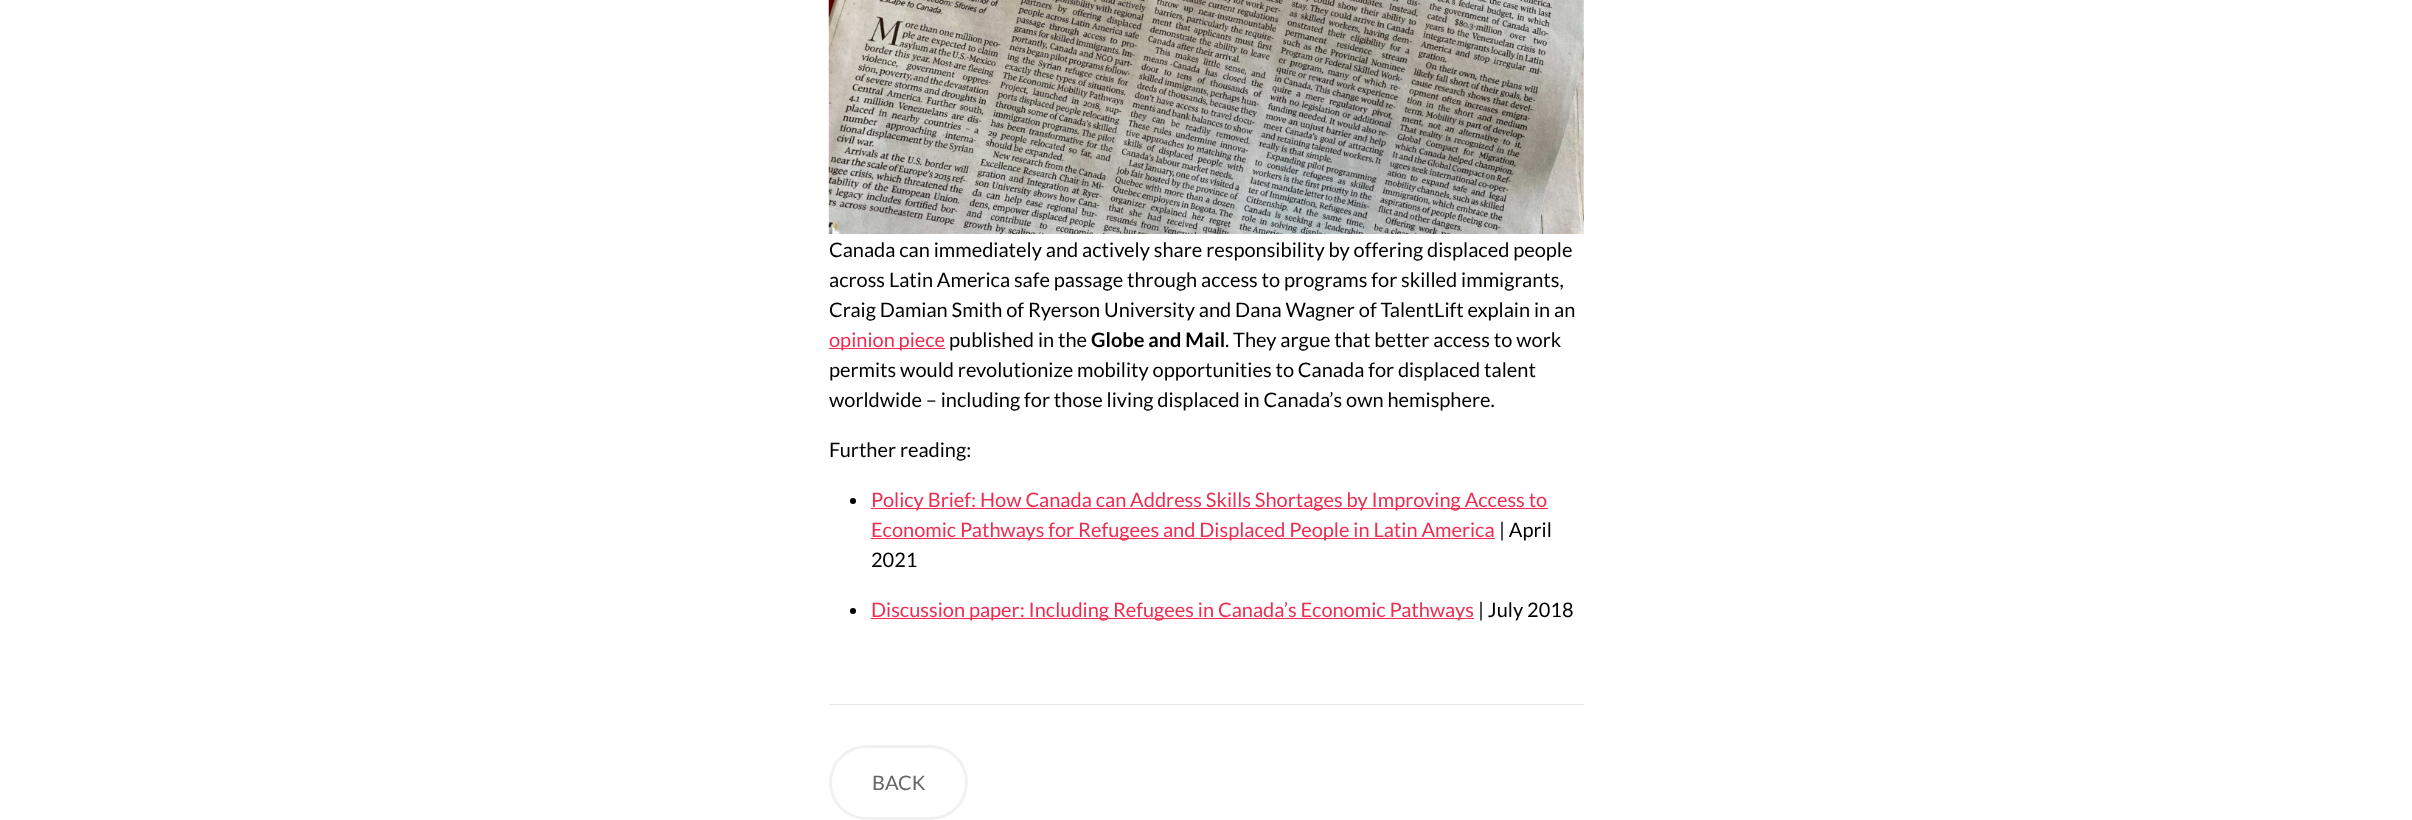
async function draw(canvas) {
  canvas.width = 2412;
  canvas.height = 820;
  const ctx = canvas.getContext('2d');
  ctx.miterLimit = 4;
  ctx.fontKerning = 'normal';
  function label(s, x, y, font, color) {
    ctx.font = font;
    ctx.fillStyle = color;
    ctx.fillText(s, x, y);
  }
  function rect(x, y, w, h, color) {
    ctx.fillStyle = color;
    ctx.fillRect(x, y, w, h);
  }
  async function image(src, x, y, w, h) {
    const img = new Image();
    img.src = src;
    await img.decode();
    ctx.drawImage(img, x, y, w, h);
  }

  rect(0, 0, 2412, 820, '#fff');
  await image('assets/img1.png', 828, 0, 756, 234);
  label('Canada can immediately and actively share responsibility by offering displaced people', 829, 257, '20px Lato', '#000');
  label('across Latin America safe passage through access to programs for skilled immigrants,', 829, 287, '20px Lato', '#000');
  label('Craig Damian Smith of Ryerson University and Dana Wagner of TalentLift explain in an', 829, 317, '20px Lato', '#000');
  rect(829, 348, 116, 1, '#ed2e52');
  label('opinion piece', 829, 347, '20px Lato', '#ed2e52');
  label('published in the', 949, 347, '20px Lato', '#000');
  label('Globe and Mail', 1091, 347, 'bold 20px Lato', '#000');
  label('. They argue that better access to work', 1225, 347, '20px Lato', '#000');
  label('permits would revolutionize mobility opportunities to Canada for displaced talent', 829, 377, '20px Lato', '#000');
  label('worldwide – including for those living displaced in Canada’s own hemisphere.', 829, 407, '20px Lato', '#000');
  label('Further reading:', 829, 457, '20px Lato', '#000');
  ctx.beginPath();
  ctx.arc(853, 501, 3, 0, 2 * Math.PI);
  ctx.fill();
  rect(871, 508, 677, 1, '#ed2e52');
  label('Policy Brief: How Canada can Address Skills Shortages by Improving Access to', 871, 507, '20px Lato', '#ed2e52');
  rect(871, 538, 624, 1, '#ed2e52');
  label('Economic Pathways for Refugees and Displaced People in Latin America', 871, 537, '20px Lato', '#ed2e52');
  label('| April', 1499, 537, '20px Lato', '#000');
  label('2021', 871, 567, '20px Lato', '#000');
  ctx.beginPath();
  ctx.arc(853, 611, 3, 0, 2 * Math.PI);
  ctx.fill();
  rect(871, 618, 603, 1, '#ed2e52');
  label('Discussion paper: Including Refugees in Canada’s Economic Pathways', 871, 617, '20px Lato', '#ed2e52');
  label('| July 2018', 1478, 617, '20px Lato', '#000');
  rect(829, 704, 755, 1, '#e5e7eb');
  ctx.beginPath();
  ctx.roundRect(830.5, 746.5, 136, 72, 36);
  ctx.strokeStyle = '#f1f1f1';
  ctx.lineWidth = 3;
  ctx.stroke();
  label('BACK', 872, 790, '20px Lato', '#666');
}

draw(document.querySelector('canvas'));
